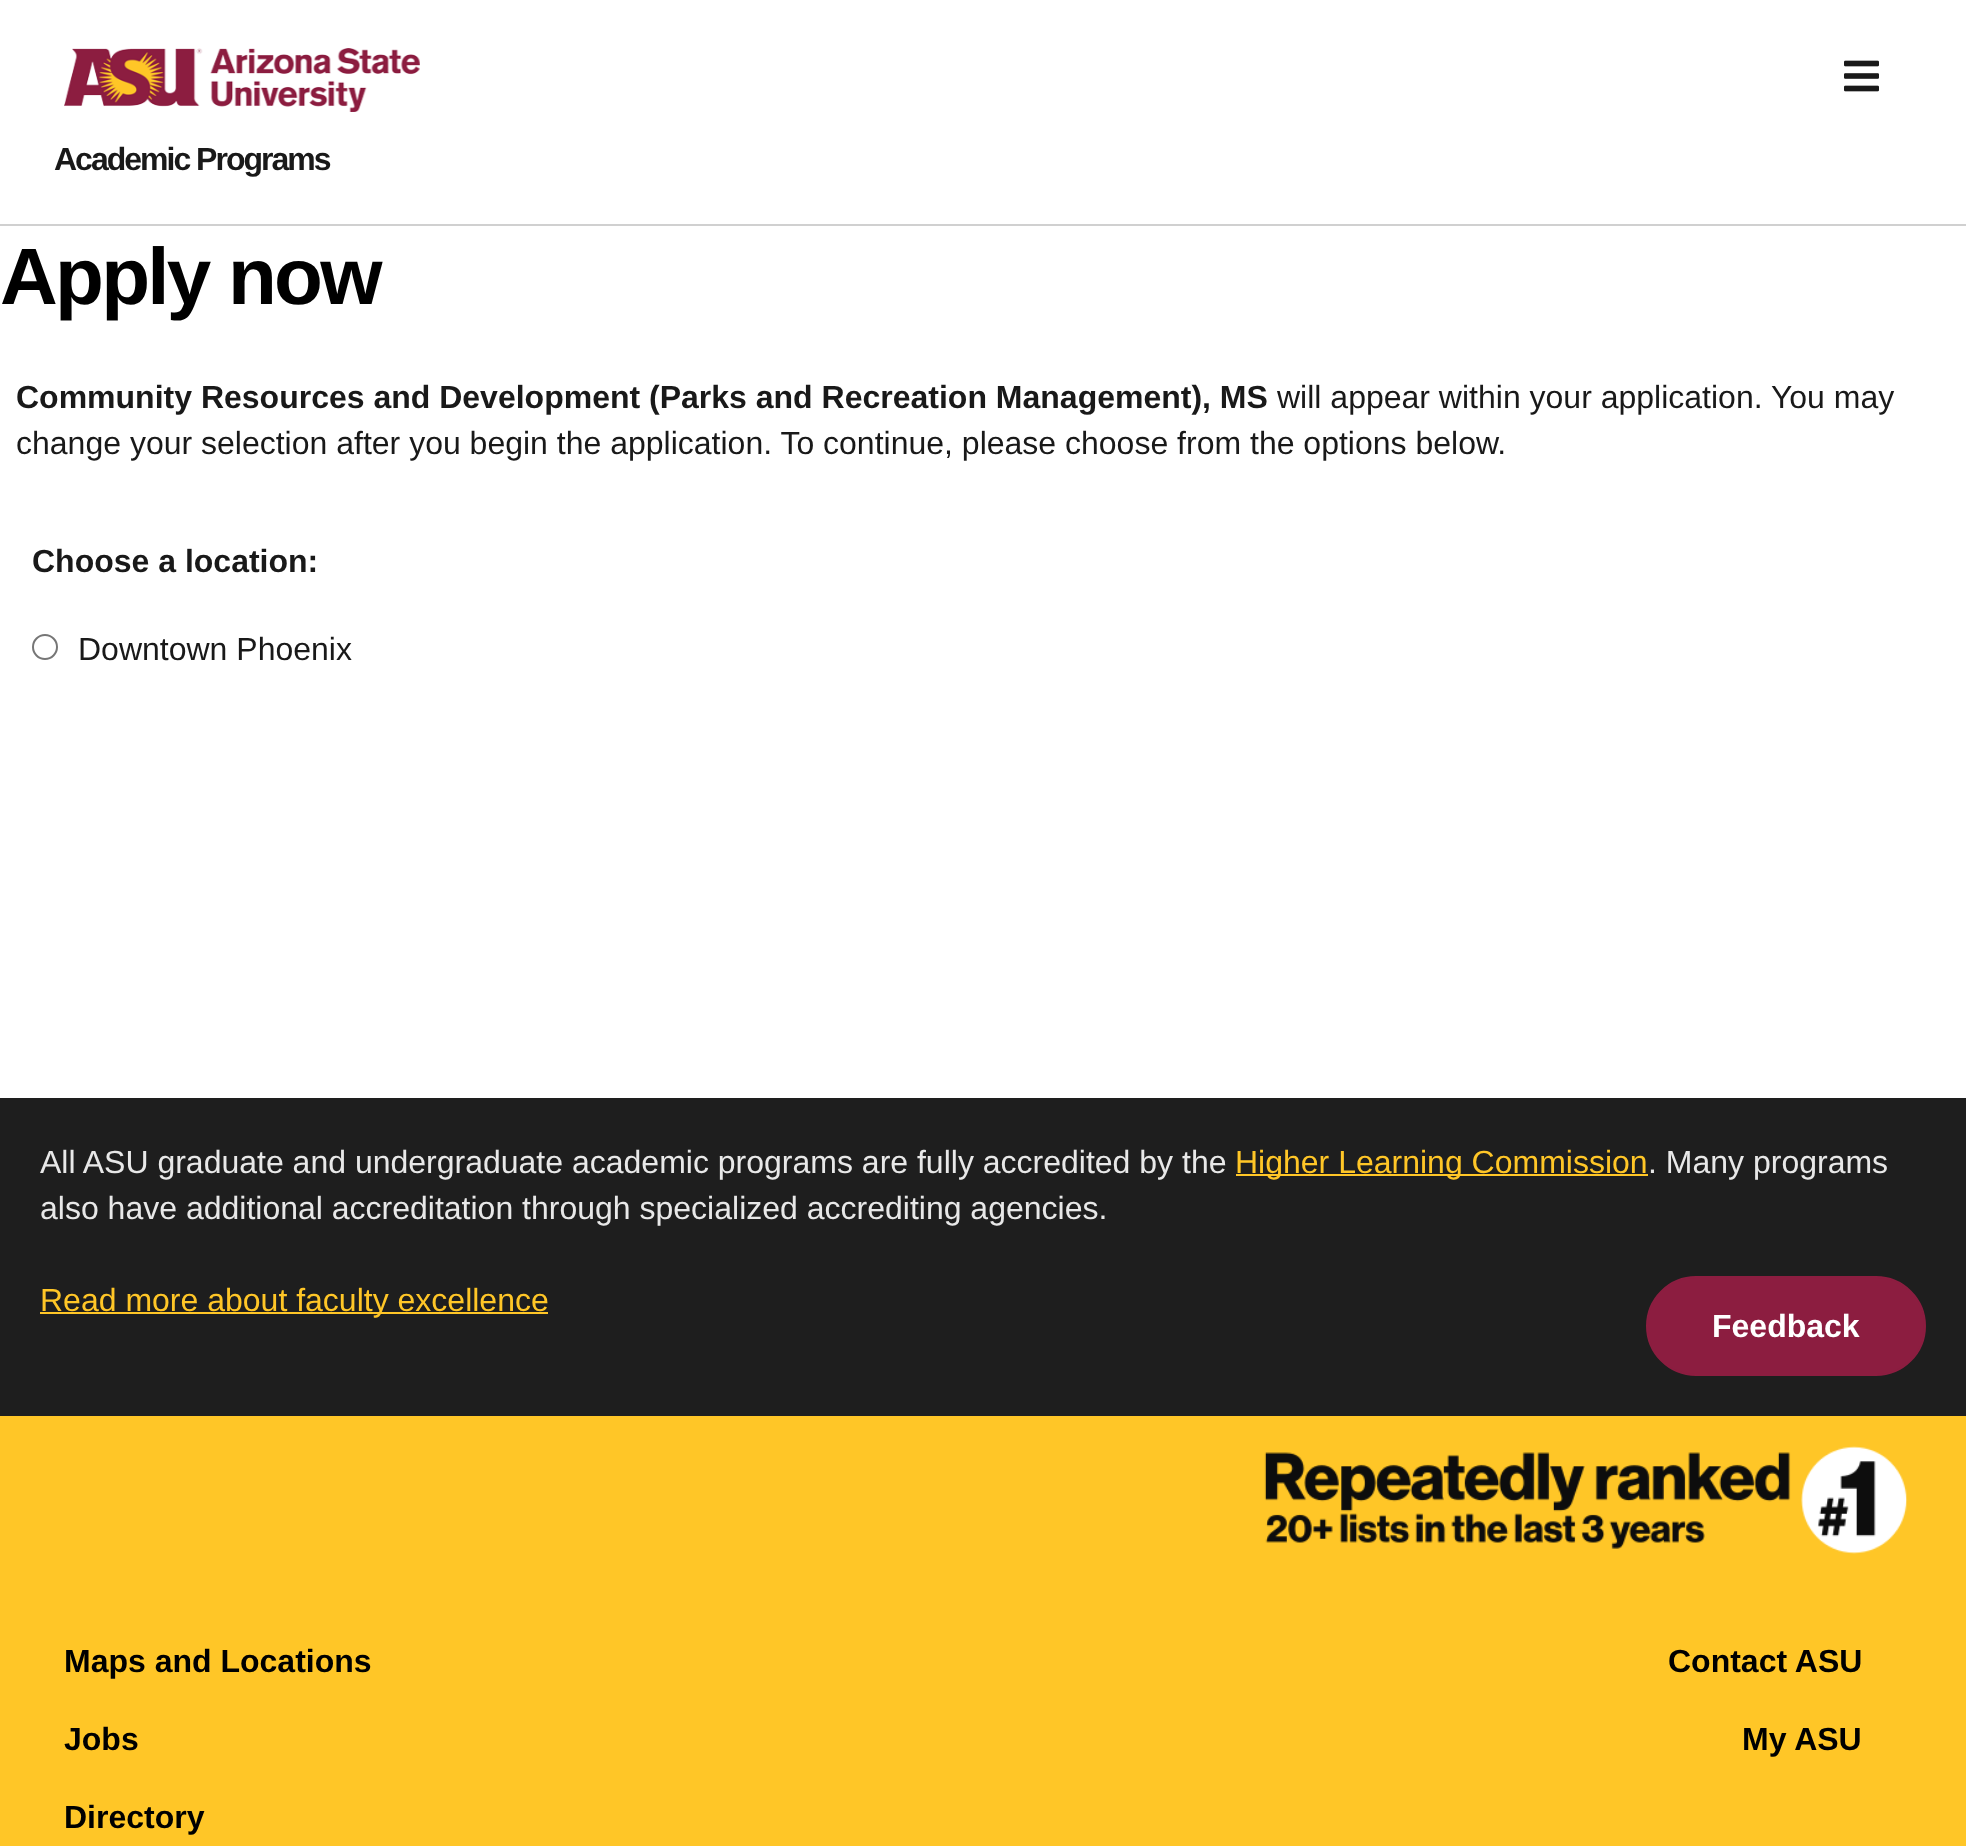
async function draw(canvas) {
  canvas.width = 1966;
  canvas.height = 1846;
  const ctx = canvas.getContext('2d');
  ctx.miterLimit = 4;
  ctx.fontKerning = 'normal';
  function label(s, x, y, font, color) {
    ctx.font = font;
    ctx.fillStyle = color;
    ctx.fillText(s, x, y);
  }
  function rect(x, y, w, h, color) {
    ctx.fillStyle = color;
    ctx.fillRect(x, y, w, h);
  }
  async function image(src, x, y, w, h) {
    const img = new Image();
    img.src = src;
    await img.decode();
    ctx.drawImage(img, x, y, w, h);
  }

  rect(0, 0, 1966, 1846, '#fff');
  rect(0, 224, 1966, 2, '#d0d0d0');
  await image('assets/img1.png', 64, 48, 356, 64);
  await image('assets/img2.png', 1844, 60, 35, 32);
  ctx.letterSpacing = '-2px';
  label('Academic Programs', 54, 170, 'bold 32px Liberation Sans', '#191919');
  ctx.letterSpacing = '-2.75px';
  label('Apply now', 0, 304, 'bold 80px Liberation Sans', '#000');
  ctx.letterSpacing = '0px';
  label('Community Resources and Development (Parks and Recreation Management), MS', 16, 408, 'bold 32px Liberation Sans', '#191919');
  label('will appear within your application. You may', 1277, 408, '32px Liberation Sans', '#191919');
  label('change your selection after you begin the application. To continue, please choose from the options below.', 16, 454, '32px Liberation Sans', '#191919');
  label('Choose a location:', 32, 572, 'bold 32px Liberation Sans', '#191919');
  ctx.beginPath();
  ctx.arc(45, 647, 12, 0, 2 * Math.PI);
  ctx.strokeStyle = '#767676';
  ctx.lineWidth = 2;
  ctx.stroke();
  label('Downtown Phoenix', 78, 660, '32px Liberation Sans', '#191919');
  rect(0, 1098, 1966, 318, '#1e1e1e');
  label('All ASU graduate and undergraduate academic programs are fully accredited by the', 40, 1173, '32px Liberation Sans', '#e8e8e8');
  rect(1236, 1174, 412, 2, '#ffc627');
  label('Higher Learning Commission', 1235, 1173, '32px Liberation Sans', '#ffc627');
  label('. Many programs', 1648, 1173, '32px Liberation Sans', '#e8e8e8');
  label('also have additional accreditation through specialized accrediting agencies.', 40, 1219, '32px Liberation Sans', '#e8e8e8');
  rect(40, 1312, 508, 2, '#ffc627');
  label('Read more about faculty excellence', 40, 1311, '32px Liberation Sans', '#ffc627');
  ctx.fillStyle = '#8c1d40';
  ctx.beginPath();
  ctx.roundRect(1647, 1277, 278, 98, 49);
  ctx.fill();
  ctx.strokeStyle = '#8c1d40';
  ctx.stroke();
  label('Feedback', 1712, 1337, 'bold 32px Liberation Sans', '#fff');
  rect(0, 1416, 1966, 430, '#ffc627');
  await image('assets/img3.png', 1264, 1446, 644, 108);
  label('Maps and Locations', 64, 1672, 'bold 32px Liberation Sans', '#000');
  label('Contact ASU', 1668, 1672, 'bold 32px Liberation Sans', '#000');
  label('Jobs', 64, 1750, 'bold 32px Liberation Sans', '#000');
  label('My ASU', 1742, 1750, 'bold 32px Liberation Sans', '#000');
  label('Directory', 64, 1828, 'bold 32px Liberation Sans', '#000');
}

draw(document.querySelector('canvas'));
